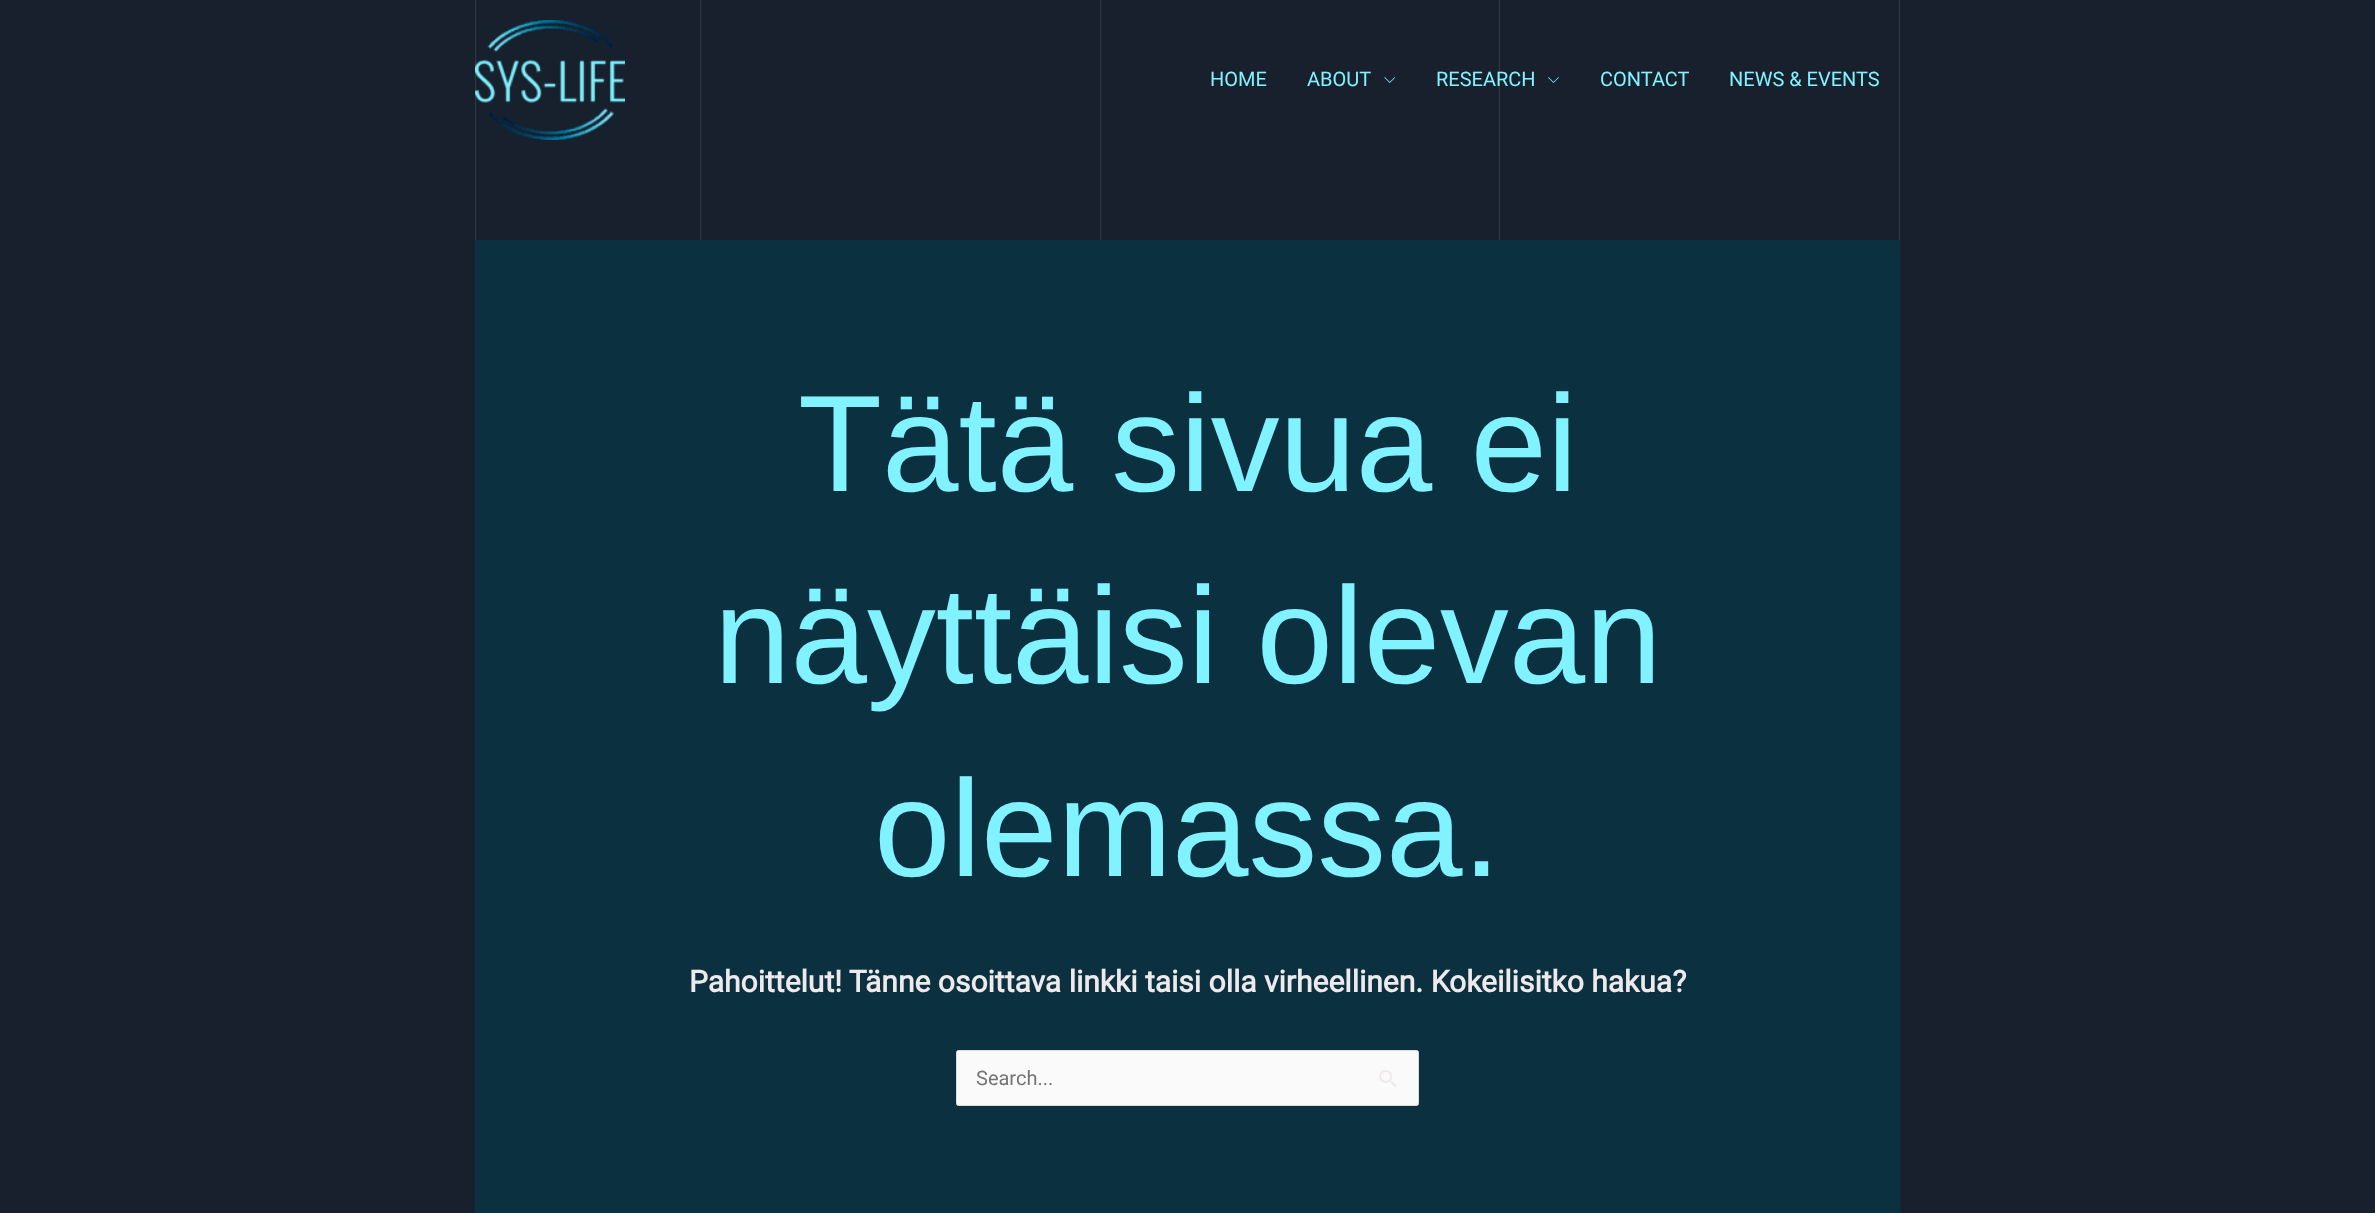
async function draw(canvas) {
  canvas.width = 2375;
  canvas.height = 1213;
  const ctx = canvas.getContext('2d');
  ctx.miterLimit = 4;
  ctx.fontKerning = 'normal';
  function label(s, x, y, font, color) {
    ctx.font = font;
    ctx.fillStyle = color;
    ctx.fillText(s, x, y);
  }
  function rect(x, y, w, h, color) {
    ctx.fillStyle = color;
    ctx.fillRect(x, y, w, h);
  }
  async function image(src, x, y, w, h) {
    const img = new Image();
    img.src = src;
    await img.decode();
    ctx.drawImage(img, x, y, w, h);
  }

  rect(0, 0, 2375, 1213, '#fff');
  await image('assets/img1.png', 0, 160, 2375, 1053);
  await image('assets/img2.png', 0, 0, 2375, 160);
  await image('assets/img3.png', 475, 20, 150, 120);
  label('HOME', 1210, 86, '20px Roboto', '#81f2ff');
  label('ABOUT', 1307, 86, '20px Roboto', '#81f2ff');
  await image('assets/img4.png', 1384, 77, 12, 6);
  label('RESEARCH', 1436, 86, '20px Roboto', '#81f2ff');
  await image('assets/img5.png', 1548, 77, 11, 6);
  label('CONTACT', 1600, 86, '20px Roboto', '#81f2ff');
  label('NEWS & EVENTS', 1729, 86, '20px Roboto', '#81f2ff');
  rect(475, 240, 1425, 973, '#0b3140');
  label('Tätä sivua ei', 798, 491, '137.5px Liberation Sans', '#81f2ff');
  label('näyttäisi olevan', 714, 683, '137.5px Liberation Sans', '#81f2ff');
  label('olemassa.', 874, 876, '137.5px Liberation Sans', '#81f2ff');
  label('Pahoittelut! Tänne osoittava linkki taisi olla virheellinen. Kokeilisitko hakua?', 689, 992, 'bold 30px Roboto', '#eeeaec');
  ctx.fillStyle = '#fafafa';
  ctx.beginPath();
  ctx.roundRect(956.5, 1050.5, 462, 55, 2);
  ctx.fill();
  ctx.strokeStyle = '#ddd';
  ctx.stroke();
  label('Search...', 976, 1085, '20px Roboto', '#757575');
  await image('assets/img6.png', 1379, 1070, 18, 17);
}

draw(document.querySelector('canvas'));
